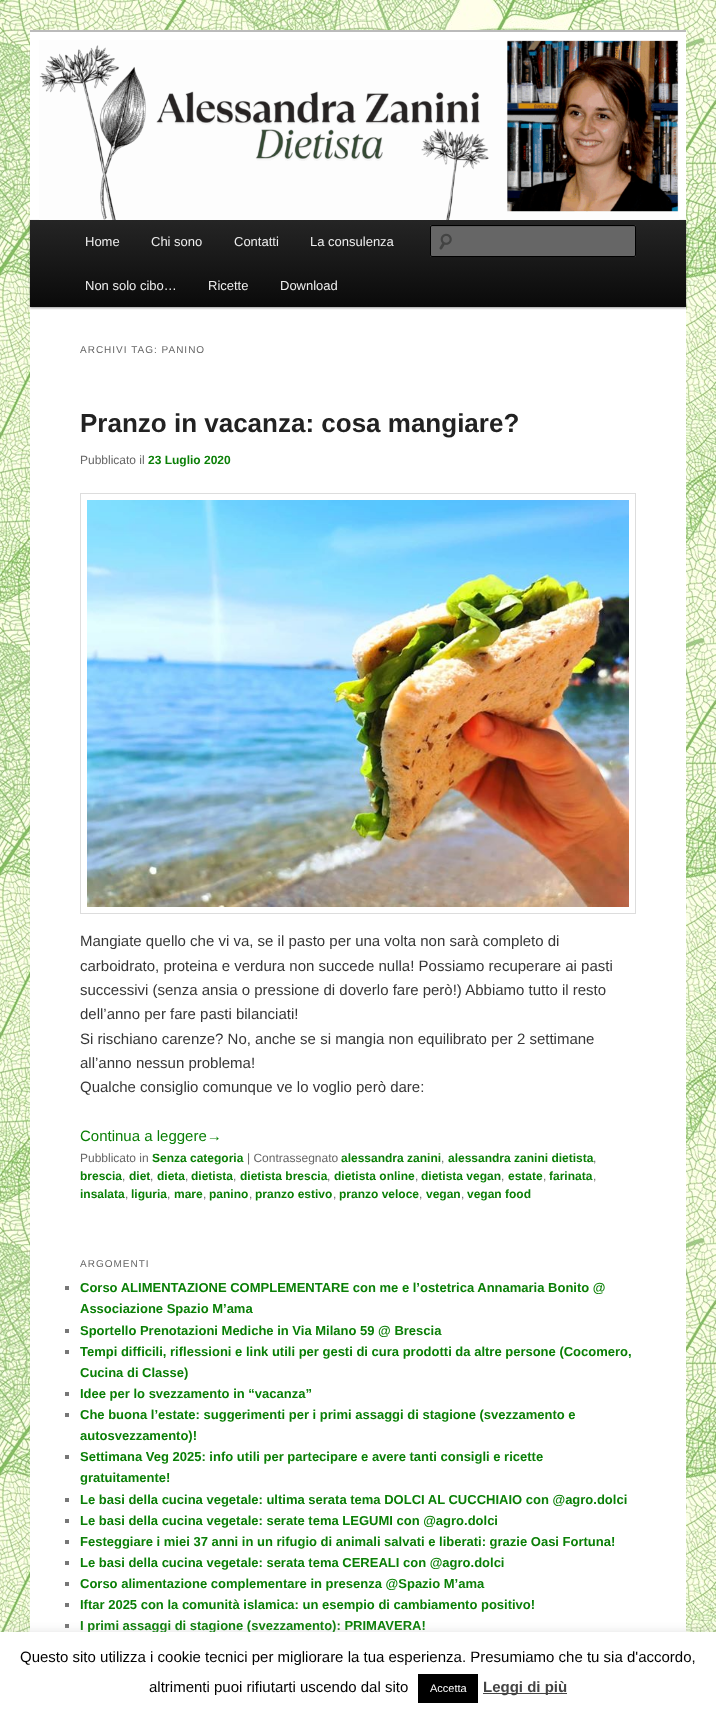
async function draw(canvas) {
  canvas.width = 716;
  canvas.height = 1715;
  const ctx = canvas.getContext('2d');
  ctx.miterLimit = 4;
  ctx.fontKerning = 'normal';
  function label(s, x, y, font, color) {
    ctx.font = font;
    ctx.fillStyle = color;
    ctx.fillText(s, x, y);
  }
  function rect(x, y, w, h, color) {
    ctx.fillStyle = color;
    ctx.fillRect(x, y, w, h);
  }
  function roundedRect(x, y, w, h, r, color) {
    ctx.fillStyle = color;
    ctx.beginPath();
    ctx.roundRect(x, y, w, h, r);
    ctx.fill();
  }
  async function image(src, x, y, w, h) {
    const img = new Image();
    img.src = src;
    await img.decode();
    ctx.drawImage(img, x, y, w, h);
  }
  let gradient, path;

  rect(0, 0, 716, 1715, '#fff');
  await image('assets/img1.png', 0, 0, 716, 1632);
  rect(30, 32, 656, 1600, '#fff');
  rect(30, 30, 656, 2, '#bbb');
  ctx.fillStyle = '#00000066';
  ctx.filter = 'blur(1px)';
  ctx.beginPath();
  ctx.rect(30, 221, 656, 87);
  ctx.fill();
  ctx.filter = 'none';
  await image('assets/img2.png', 39, 40, 640, 180);
  gradient = ctx.createLinearGradient(358, 220, 358, 307);
  gradient.addColorStop(0, '#252525');
  gradient.addColorStop(1, '#0a0a0a');
  ctx.fillStyle = gradient;
  ctx.fillRect(30, 220, 656, 87);
  label('Home', 85, 246, '13px Liberation Sans', '#eee');
  label('Chi sono', 151, 246, '13px Liberation Sans', '#eee');
  label('Contatti', 234, 246, '13px Liberation Sans', '#eee');
  label('La consulenza', 310, 246, '13px Liberation Sans', '#eee');
  label('Non solo cibo…', 85, 290, '13px Liberation Sans', '#eee');
  label('Ricette', 208, 290, '13px Liberation Sans', '#eee');
  label('Download', 280, 290, '13px Liberation Sans', '#eee');
  roundedRect(430, 225, 206, 32, 2, '#666');
  await image('assets/img3.png', 439, 233, 13, 17);
  ctx.fillStyle = '#5c5c5c';
  path = new Path2D('M432 227H635V228C635 227 635 226 634 226H432H431V228C431 227 431 227 432 227Z');
  ctx.fill(path);
  ctx.beginPath();
  ctx.roundRect(430.5, 225.5, 205, 31, 1.5);
  ctx.strokeStyle = '#000';
  ctx.stroke();
  ctx.letterSpacing = '1px';
  label('ARCHIVI TAG: PANINO', 80, 353, '10px Liberation Sans', '#666');
  ctx.letterSpacing = '0px';
  label('Pranzo in vacanza: cosa mangiare?', 80, 432, 'bold 26px Liberation Sans', '#222');
  label('Pubblicato il', 80, 464, '12px Liberation Sans', '#666');
  label('23 Luglio 2020', 148, 464, 'bold 12px Liberation Sans', '#0a7f06');
  ctx.strokeStyle = '#ddd';
  ctx.strokeRect(80.5, 493.5, 555, 420);
  await image('assets/img4.png', 87, 500, 542, 407);
  label('Mangiate quello che vi va, se il pasto per una volta non sarà completo di', 80, 946, '15px Liberation Sans', '#373737');
  label('carboidrato, proteina e verdura non succede nulla! Possiamo recuperare ai pasti', 80, 971, '15px Liberation Sans', '#373737');
  label('successivi (senza ansia o pressione di doverlo fare però!) Abbiamo tutto il resto', 80, 995, '15px Liberation Sans', '#373737');
  label('dell’anno per fare pasti bilanciati!', 80, 1019, '15px Liberation Sans', '#373737');
  label('Si rischiano carenze? No, anche se si mangia non equilibrato per 2 settimane', 80, 1044, '15px Liberation Sans', '#373737');
  label('all’anno nessun problema!', 80, 1068, '15px Liberation Sans', '#373737');
  label('Qualche consiglio comunque ve lo voglio però dare:', 80, 1092, '15px Liberation Sans', '#373737');
  label('Continua a leggere→', 80, 1141, '15px Liberation Sans', '#0a7f06');
  label('Pubblicato in', 80, 1162, '12px Liberation Sans', '#666');
  label('Senza categoria', 152, 1162, 'bold 12px Liberation Sans', '#0a7f06');
  label('| Contrassegnato', 247, 1162, '12px Liberation Sans', '#666');
  label('alessandra zanini', 341, 1162, 'bold 12px Liberation Sans', '#0a7f06');
  label(',', 441, 1162, '12px Liberation Sans', '#666');
  label('alessandra zanini dietista', 448, 1162, 'bold 12px Liberation Sans', '#0a7f06');
  label(',', 593, 1162, '12px Liberation Sans', '#666');
  label('brescia', 80, 1180, 'bold 12px Liberation Sans', '#0a7f06');
  label(',', 122, 1180, '12px Liberation Sans', '#666');
  label('diet', 129, 1180, 'bold 12px Liberation Sans', '#0a7f06');
  label(',', 150, 1180, '12px Liberation Sans', '#666');
  label('dieta', 157, 1180, 'bold 12px Liberation Sans', '#0a7f06');
  label(',', 185, 1180, '12px Liberation Sans', '#666');
  label('dietista', 191, 1180, 'bold 12px Liberation Sans', '#0a7f06');
  label(',', 233, 1180, '12px Liberation Sans', '#666');
  label('dietista brescia', 240, 1180, 'bold 12px Liberation Sans', '#0a7f06');
  label(',', 327, 1180, '12px Liberation Sans', '#666');
  label('dietista online', 334, 1180, 'bold 12px Liberation Sans', '#0a7f06');
  label(',', 415, 1180, '12px Liberation Sans', '#666');
  label('dietista vegan', 421, 1180, 'bold 12px Liberation Sans', '#0a7f06');
  label(',', 501, 1180, '12px Liberation Sans', '#666');
  label('estate', 508, 1180, 'bold 12px Liberation Sans', '#0a7f06');
  label(',', 543, 1180, '12px Liberation Sans', '#666');
  label('farinata', 549, 1180, 'bold 12px Liberation Sans', '#0a7f06');
  label(',', 593, 1180, '12px Liberation Sans', '#666');
  label('insalata', 80, 1198, 'bold 12px Liberation Sans', '#0a7f06');
  label(',', 125, 1198, '12px Liberation Sans', '#666');
  label('liguria', 131, 1198, 'bold 12px Liberation Sans', '#0a7f06');
  label(',', 167, 1198, '12px Liberation Sans', '#666');
  label('mare', 174, 1198, 'bold 12px Liberation Sans', '#0a7f06');
  label(',', 203, 1198, '12px Liberation Sans', '#666');
  label('panino', 209, 1198, 'bold 12px Liberation Sans', '#0a7f06');
  label(',', 249, 1198, '12px Liberation Sans', '#666');
  label('pranzo estivo', 255, 1198, 'bold 12px Liberation Sans', '#0a7f06');
  label(',', 333, 1198, '12px Liberation Sans', '#666');
  label('pranzo veloce', 339, 1198, 'bold 12px Liberation Sans', '#0a7f06');
  label(',', 419, 1198, '12px Liberation Sans', '#666');
  label('vegan', 426, 1198, 'bold 12px Liberation Sans', '#0a7f06');
  label(',', 461, 1198, '12px Liberation Sans', '#666');
  label('vegan food', 467, 1198, 'bold 12px Liberation Sans', '#0a7f06');
  ctx.letterSpacing = '1px';
  label('ARGOMENTI', 80, 1267, '10px Liberation Sans', '#666');
  rect(65, 1286, 4, 4, '#777');
  ctx.letterSpacing = '0px';
  label('Corso ALIMENTAZIONE COMPLEMENTARE con me e l’ostetrica Annamaria Bonito @', 80, 1292, 'bold 13px Liberation Sans', '#0a7f06');
  label('Associazione Spazio M’ama', 80, 1313, 'bold 13px Liberation Sans', '#0a7f06');
  rect(65, 1329, 4, 4, '#777');
  label('Sportello Prenotazioni Mediche in Via Milano 59 @ Brescia', 80, 1335, 'bold 13px Liberation Sans', '#0a7f06');
  rect(65, 1350, 4, 4, '#777');
  label('Tempi difficili, riflessioni e link utili per gesti di cura prodotti da altre persone (Cocomero,', 80, 1356, 'bold 13px Liberation Sans', '#0a7f06');
  label('Cucina di Classe)', 80, 1377, 'bold 13px Liberation Sans', '#0a7f06');
  rect(65, 1392, 4, 4, '#777');
  label('Idee per lo svezzamento in “vacanza”', 80, 1398, 'bold 13px Liberation Sans', '#0a7f06');
  rect(65, 1413, 4, 4, '#777');
  label('Che buona l’estate: suggerimenti per i primi assaggi di stagione (svezzamento e', 80, 1419, 'bold 13px Liberation Sans', '#0a7f06');
  label('autosvezzamento)!', 80, 1440, 'bold 13px Liberation Sans', '#0a7f06');
  rect(65, 1455, 4, 4, '#777');
  label('Settimana Veg 2025: info utili per partecipare e avere tanti consigli e ricette', 80, 1461, 'bold 13px Liberation Sans', '#0a7f06');
  label('gratuitamente!', 80, 1482, 'bold 13px Liberation Sans', '#0a7f06');
  rect(65, 1498, 4, 4, '#777');
  label('Le basi della cucina vegetale: ultima serata tema DOLCI AL CUCCHIAIO con @agro.dolci', 80, 1504, 'bold 13px Liberation Sans', '#0a7f06');
  rect(65, 1519, 4, 4, '#777');
  label('Le basi della cucina vegetale: serate tema LEGUMI con @agro.dolci', 80, 1525, 'bold 13px Liberation Sans', '#0a7f06');
  rect(65, 1540, 4, 4, '#777');
  label('Festeggiare i miei 37 anni in un rifugio di animali salvati e liberati: grazie Oasi Fortuna!', 80, 1546, 'bold 13px Liberation Sans', '#0a7f06');
  rect(65, 1561, 4, 4, '#777');
  label('Le basi della cucina vegetale: serata tema CEREALI con @agro.dolci', 80, 1567, 'bold 13px Liberation Sans', '#0a7f06');
  rect(65, 1582, 4, 4, '#777');
  label('Corso alimentazione complementare in presenza @Spazio M’ama', 80, 1588, 'bold 13px Liberation Sans', '#0a7f06');
  rect(65, 1603, 4, 4, '#777');
  label('Iftar 2025 con la comunità islamica: un esempio di cambiamento positivo!', 80, 1609, 'bold 13px Liberation Sans', '#0a7f06');
  rect(65, 1624, 4, 4, '#777');
  label('I primi assaggi di stagione (svezzamento): PRIMAVERA!', 80, 1630, 'bold 13px Liberation Sans', '#0a7f06');
  ctx.fillStyle = '#acabab4d';
  ctx.filter = 'blur(5px)';
  ctx.beginPath();
  ctx.rect(0, 1631, 716, 83);
  ctx.fill();
  ctx.filter = 'none';
  rect(0, 1632, 716, 83, '#fff');
  label('Questo sito utilizza i cookie tecnici per migliorare la tua esperienza. Presumiamo che tu sia d\'accordo,', 20, 1662, '15px Liberation Sans', '#000');
  label('altrimenti puoi rifiutarti uscendo dal sito', 149, 1692, '15px Liberation Sans', '#000');
  rect(418, 1674, 60, 29, '#000');
  label('Accetta', 430, 1692, '11px Liberation Sans', '#fff');
  rect(483, 1693, 84, 1, '#444');
  label('Leggi di più', 483, 1692, 'bold 15px Liberation Sans', '#444');
}

draw(document.querySelector('canvas'));
